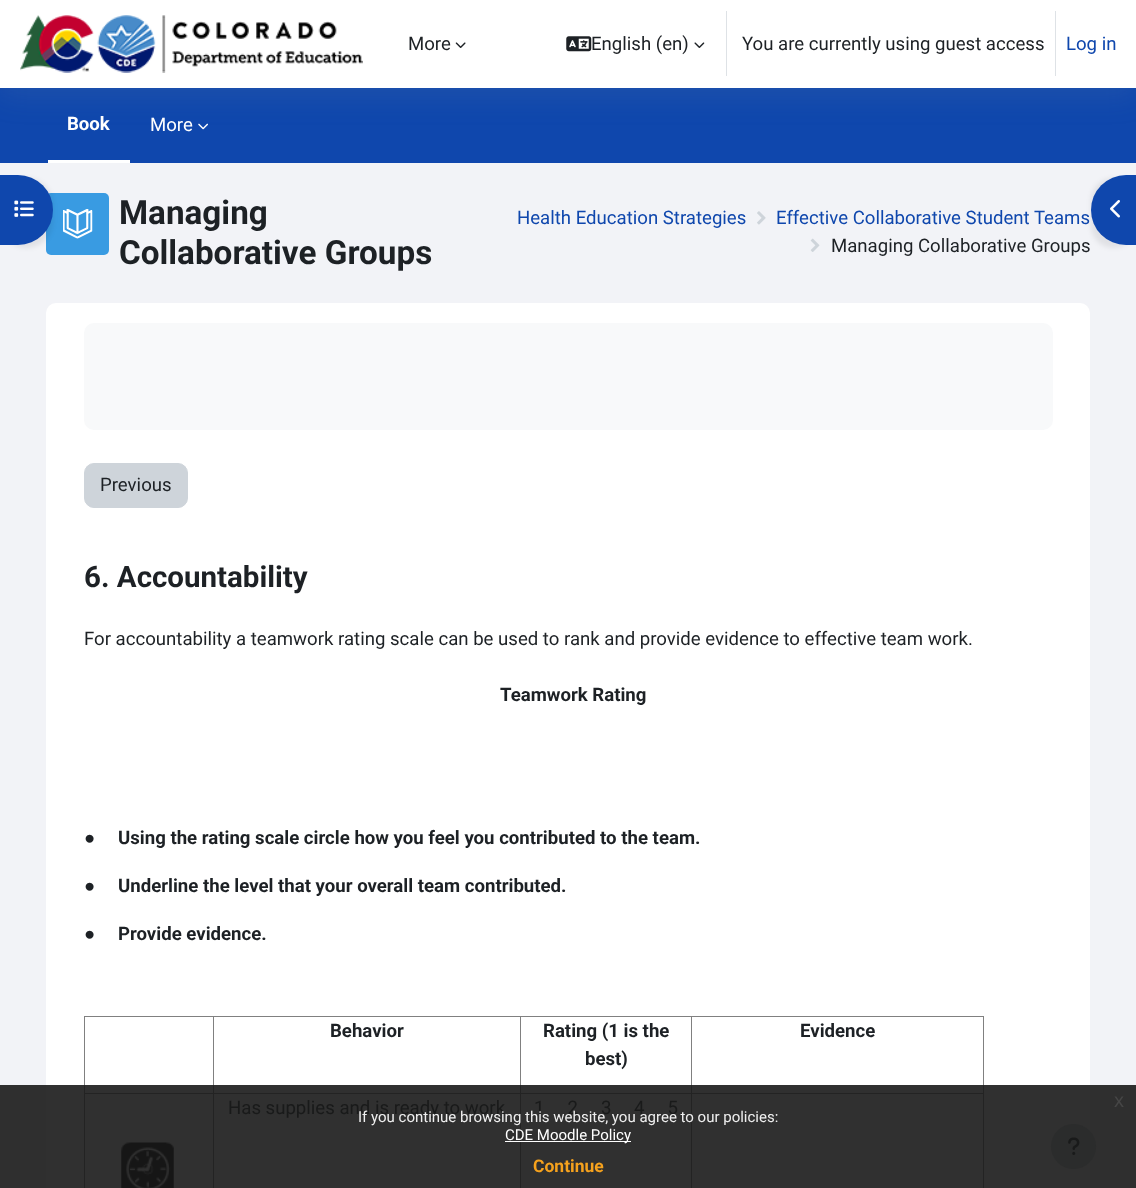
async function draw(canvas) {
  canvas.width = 1136;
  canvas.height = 1188;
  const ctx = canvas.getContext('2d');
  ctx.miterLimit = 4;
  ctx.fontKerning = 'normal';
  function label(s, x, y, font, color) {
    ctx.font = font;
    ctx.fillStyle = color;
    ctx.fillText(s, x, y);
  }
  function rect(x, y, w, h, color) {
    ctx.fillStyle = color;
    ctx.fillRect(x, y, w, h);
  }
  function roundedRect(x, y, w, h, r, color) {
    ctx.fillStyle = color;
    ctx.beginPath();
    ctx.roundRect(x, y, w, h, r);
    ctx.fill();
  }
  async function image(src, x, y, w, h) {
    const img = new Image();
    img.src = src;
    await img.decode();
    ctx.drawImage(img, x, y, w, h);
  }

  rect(0, 0, 1136, 1188, '#f2f3f7');
  rect(0, 1085, 1136, 103, '#2f2f2f');
  rect(0, 88, 1136, 75, '#0f47ad');
  await image('assets/img5.png', 198, 123, 10, 7);
  ctx.fillStyle = '#8c98a421';
  ctx.filter = 'blur(15px)';
  ctx.beginPath();
  ctx.rect(0, 8, 1136, 87);
  ctx.fill();
  ctx.filter = 'none';
  rect(0, 0, 1136, 88, '#fff');
  await image('assets/img1.png', 20, 15, 343, 58);
  label('More', 408, 50, '18.6px Roboto', '#1d2125');
  await image('assets/img2.png', 455, 42, 11, 6);
  await image('assets/img3.png', 566, 36, 26, 16);
  label('English (en)', 591, 50, '18.6px Roboto', '#1d2125');
  await image('assets/img4.png', 694, 42, 11, 6);
  rect(726, 11, 1, 65, '#dee2e6');
  label('You are currently using guest access', 742, 50, '18.6px Roboto', '#1d2125');
  rect(1055, 11, 1, 65, '#dee2e6');
  label('Log in', 1066, 50, '18.6px Roboto', '#0f47ad');
  rect(48, 160, 82, 3, '#fff');
  label('Book', 67, 130, 'bold 18.6px Roboto', '#fff');
  label('More', 150, 131, '18.6px Roboto', '#fff');
  roundedRect(46, 193, 63, 62, 5, '#399be2');
  await image('assets/img6.png', 63, 209, 30, 30);
  label('Managing', 119, 224, 'bold 33.25px Roboto', '#1d2125');
  label('Collaborative Groups', 119, 264, 'bold 33.25px Roboto', '#1d2125');
  label('Health Education Strategies', 517, 224, '18.6px Roboto', '#0f47ad');
  await image('assets/img7.png', 757, 211, 9, 14);
  label('Effective Collaborative Student Teams', 776, 224, '18.6px Roboto', '#0f47ad');
  await image('assets/img8.png', 810, 238, 10, 14);
  label('Managing Collaborative Groups', 831, 252, '18.6px Roboto', '#1d2125');
  roundedRect(46, 303, 1044, 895, 10, '#fff');
  rect(46, 1085, 1044, 103, '#303030');
  ctx.fillStyle = '#00000012';
  ctx.filter = 'blur(2.5px)';
  ctx.beginPath();
  ctx.roundRect(0, 178, 53, 70, 35);
  ctx.fill();
  ctx.filter = 'none';
  ctx.fillStyle = '#0f47ad';
  ctx.beginPath();
  ctx.roundRect(0, 175, 53, 70, [0, 35, 35, 0]);
  ctx.fill();
  await image('assets/img9.png', 14, 200, 20, 17);
  ctx.fillStyle = '#00000012';
  ctx.filter = 'blur(2.5px)';
  ctx.beginPath();
  ctx.roundRect(1091, 178, 45, 70, 35);
  ctx.fill();
  ctx.filter = 'none';
  ctx.fillStyle = '#0f47ad';
  ctx.beginPath();
  ctx.roundRect(1091, 175, 45, 70, [35, 0, 0, 35]);
  ctx.fill();
  await image('assets/img10.png', 1110, 200, 10, 18);
  roundedRect(84, 323, 969, 107, 10, '#f8f9fa');
  ctx.fillStyle = '#ced4da';
  ctx.beginPath();
  ctx.roundRect(84.5, 463.5, 103, 44, 9.5);
  ctx.fill();
  ctx.strokeStyle = '#ced4da';
  ctx.stroke();
  label('Previous', 100, 491, '18.6px Roboto', '#1d2125');
  label('6. Accountability', 84, 587, 'bold 29.5px Roboto', '#1d2125');
  label('For accountability a teamwork rating scale can be used to rank and provide evidence to effective team work.', 84, 645, '18.6px Roboto', '#1d2125');
  label('Teamwork Rating', 500, 701, 'bold 18.6px Roboto', '#1d2125');
  label('●', 84, 844, '18.6px Liberation Serif', '#1d2125');
  label('Using the rating scale circle how you feel you contributed to the team.', 118, 844, 'bold 18.6px Roboto', '#1d2125');
  label('●', 84, 892, '18.6px Liberation Serif', '#1d2125');
  label('Underline the level that your overall team contributed.', 118, 892, 'bold 18.6px Roboto', '#1d2125');
  label('●', 84, 940, '18.6px Liberation Serif', '#1d2125');
  label('Provide evidence.', 118, 940, 'bold 18.6px Roboto', '#1d2125');
  rect(84, 1016, 900, 1, '#808080');
  rect(983, 1016, 1, 69, '#808080');
  rect(983, 1085, 1, 103, '#232323');
  rect(84, 1016, 1, 69, '#808080');
  rect(84, 1085, 1, 103, '#232323');
  rect(213, 1016, 1, 69, '#808080');
  rect(691, 1093, 293, 1, '#232323');
  rect(691, 1093, 1, 95, '#232323');
  rect(520, 1093, 173, 1, '#232323');
  rect(520, 1093, 1, 95, '#232323');
  rect(213, 1093, 308, 1, '#232323');
  rect(213, 1093, 1, 95, '#232323');
  rect(84, 1093, 130, 1, '#232323');
  rect(213, 1085, 1, 9, '#232323');
  label('Behavior', 330, 1037, 'bold 18.6px Roboto', '#1d2125');
  rect(520, 1016, 1, 69, '#808080');
  rect(520, 1085, 1, 9, '#232323');
  label('Rating (1 is the', 543, 1037, 'bold 18.6px Roboto', '#1d2125');
  label('best)', 585, 1065, 'bold 18.6px Roboto', '#1d2125');
  rect(691, 1016, 1, 69, '#808080');
  rect(691, 1085, 1, 9, '#232323');
  label('Evidence', 800, 1037, 'bold 18.6px Roboto', '#1d2125');
  await image('assets/img11.png', 121, 1142, 53, 46);
  label('Has supplies and is ready to work', 228, 1114, '18.6px Roboto', '#191a1a');
  label('1     2     3', 534, 1114, '18.6px Roboto', '#191a1a');
  label('4     5', 634, 1114, '18.6px Roboto', '#191a1a');
  ctx.fillStyle = '#2b2c2c';
  ctx.beginPath();
  ctx.arc(1073.5, 1146.5, 22.5, 0, 2 * Math.PI);
  ctx.fill();
  await image('assets/img12.png', 1068, 1137, 12, 18);
  label('x', 1114, 1107, '20px Liberation Sans', '#464646');
  label('If you continue browsing this website, you agree to our policies:', 358, 1122, '15px Roboto', '#efefef');
  rect(505, 1141, 126, 1, '#fff');
  label('CDE Moodle Policy', 505, 1140, '15px Roboto', '#fff');
  label('Continue', 533, 1172, 'bold 17.5px Roboto', '#f6a21d');
}

draw(document.querySelector('canvas'));
